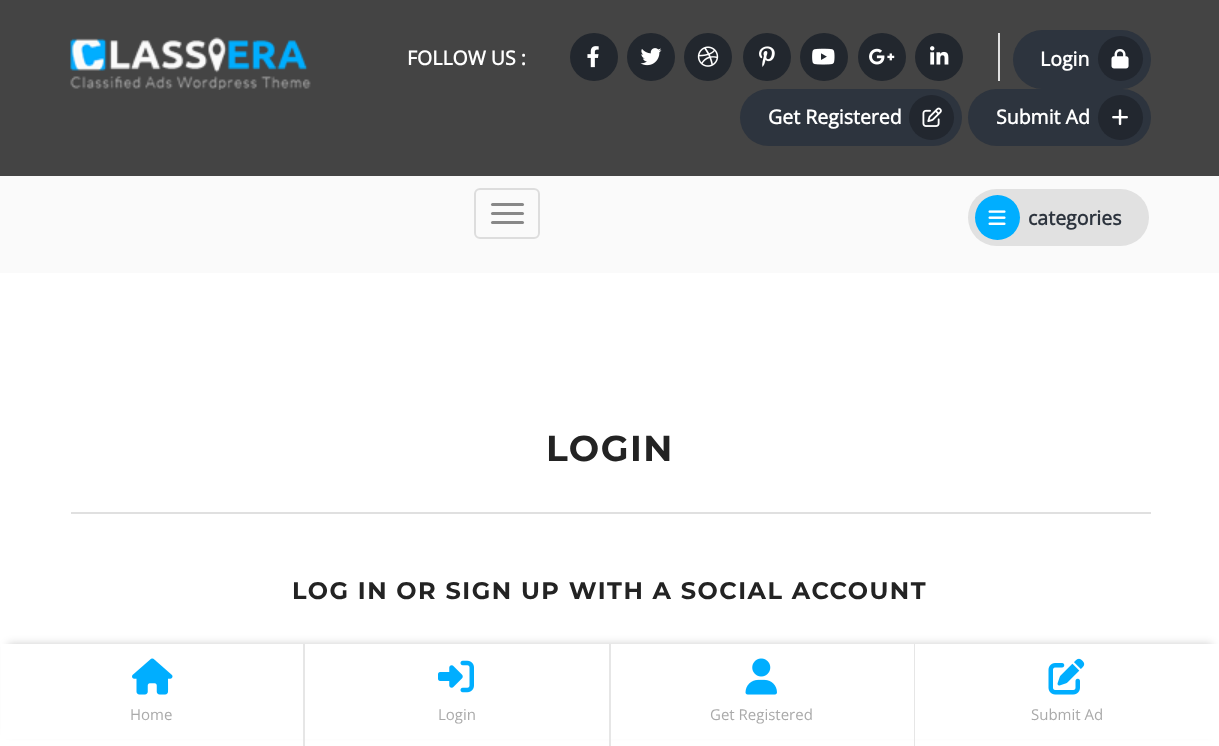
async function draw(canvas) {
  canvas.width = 1219;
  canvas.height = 746;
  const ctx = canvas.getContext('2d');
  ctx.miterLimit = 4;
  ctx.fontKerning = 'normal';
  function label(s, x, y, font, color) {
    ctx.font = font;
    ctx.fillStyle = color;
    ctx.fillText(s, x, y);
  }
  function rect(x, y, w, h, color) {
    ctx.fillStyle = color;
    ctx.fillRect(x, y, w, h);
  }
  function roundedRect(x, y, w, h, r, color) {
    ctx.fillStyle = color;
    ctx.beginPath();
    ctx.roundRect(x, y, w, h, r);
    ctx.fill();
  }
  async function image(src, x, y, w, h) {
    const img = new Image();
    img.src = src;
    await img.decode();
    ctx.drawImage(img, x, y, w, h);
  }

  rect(0, 0, 1219, 746, '#fff');
  rect(0, 0, 1219, 176, '#444');
  await image('assets/img1.png', 70, 37, 241, 53);
  label('FOLLOW US :', 407, 65, 'bold 19.5px Open Sans', '#fff');
  rect(998, 33, 2, 48, '#e0e0e0');
  ctx.fillStyle = '#22272e';
  ctx.beginPath();
  ctx.arc(594, 57, 24, 0, 2 * Math.PI);
  ctx.fill();
  await image('assets/img2.png', 587, 46, 12, 22);
  ctx.beginPath();
  ctx.arc(651, 57, 24, 0, 2 * Math.PI);
  ctx.fill();
  await image('assets/img3.png', 640, 48, 22, 18);
  ctx.beginPath();
  ctx.arc(708, 57, 24, 0, 2 * Math.PI);
  ctx.fill();
  await image('assets/img4.png', 697, 46, 22, 21);
  ctx.beginPath();
  ctx.arc(767, 57, 24, 0, 2 * Math.PI);
  ctx.fill();
  await image('assets/img5.png', 759, 46, 16, 21);
  ctx.beginPath();
  ctx.arc(824, 57, 24, 0, 2 * Math.PI);
  ctx.fill();
  await image('assets/img6.png', 812, 48, 23, 17);
  ctx.beginPath();
  ctx.arc(882, 57, 24, 0, 2 * Math.PI);
  ctx.fill();
  await image('assets/img7.png', 869, 48, 26, 17);
  ctx.beginPath();
  ctx.arc(939, 57, 24, 0, 2 * Math.PI);
  ctx.fill();
  await image('assets/img8.png', 930, 46, 19, 19);
  roundedRect(1013, 30, 138, 59, 29.5, '#2d343e');
  label('Login', 1040, 66, 'bold 19.5px Open Sans', '#fff');
  ctx.fillStyle = '#22272f';
  ctx.beginPath();
  ctx.arc(1120.5, 58.5, 22.5, 0, 2 * Math.PI);
  ctx.fill();
  await image('assets/img9.png', 1111, 49, 18, 20);
  roundedRect(740, 89, 222, 57, 28.5, '#2d343e');
  label('Get Registered', 768, 124, 'bold 19.5px Open Sans', '#fff');
  ctx.fillStyle = '#22272f';
  ctx.beginPath();
  ctx.arc(931.5, 117.5, 22.5, 0, 2 * Math.PI);
  ctx.fill();
  await image('assets/img10.png', 922, 107, 20, 20);
  roundedRect(968, 89, 183, 57, 28.5, '#2d343e');
  label('Submit Ad', 996, 124, 'bold 19.5px Open Sans', '#fff');
  ctx.fillStyle = '#22272f';
  ctx.beginPath();
  ctx.arc(1120.5, 117.5, 22.5, 0, 2 * Math.PI);
  ctx.fill();
  await image('assets/img11.png', 1112, 109, 16, 17);
  rect(0, 176, 1219, 97, '#fafafa');
  ctx.beginPath();
  ctx.roundRect(475, 189, 64, 49, 5);
  ctx.strokeStyle = '#ddd';
  ctx.lineWidth = 2;
  ctx.stroke();
  roundedRect(491, 203, 33, 3, 1.5, '#888');
  roundedRect(491, 212, 33, 3, 1.5, '#888');
  roundedRect(491, 221, 33, 3, 1.5, '#888');
  roundedRect(968, 189, 181, 57, 28.5, '#e1e1e1');
  ctx.fillStyle = '#00aeff';
  ctx.beginPath();
  ctx.arc(997.5, 217.5, 22.5, 0, 2 * Math.PI);
  ctx.fill();
  await image('assets/img12.png', 988, 210, 18, 15);
  label('categories', 1028, 225, 'bold 19.5px Open Sans', '#2d343e');
  ctx.fillStyle = '#00000033';
  ctx.filter = 'blur(4px)';
  ctx.beginPath();
  ctx.rect(8, 644, 1204, 88);
  ctx.fill();
  ctx.filter = 'none';
  rect(1, 644, 913, 95, '#fff');
  rect(303, 644, 2, 102, '#e6e6e6');
  await image('assets/img13.png', 132, 658, 41, 37);
  label('Home', 130, 720, '15px Open Sans', '#aaa');
  rect(609, 644, 2, 102, '#e6e6e6');
  await image('assets/img14.png', 438, 660, 36, 33);
  label('Login', 438, 720, '15px Open Sans', '#aaa');
  rect(914, 644, 1, 102, '#e6e6e6');
  await image('assets/img15.png', 745, 658, 32, 37);
  label('Get Registered', 710, 720, '15px Open Sans', '#aaa');
  rect(915, 644, 304, 95, '#fff');
  await image('assets/img16.png', 1048, 658, 37, 37);
  label('Submit Ad', 1031, 720, '15px Open Sans', '#aaa');
  rect(71, 512, 1080, 2, '#e0e0e0');
  ctx.letterSpacing = '1.5px';
  label('LOGIN', 546, 461, '100 36px Montserrat', '#232323');
  label('LOG IN OR SIGN UP WITH A SOCIAL ACCOUNT', 292, 599, '100 24px Montserrat', '#232323');
}

draw(document.querySelector('canvas'));
